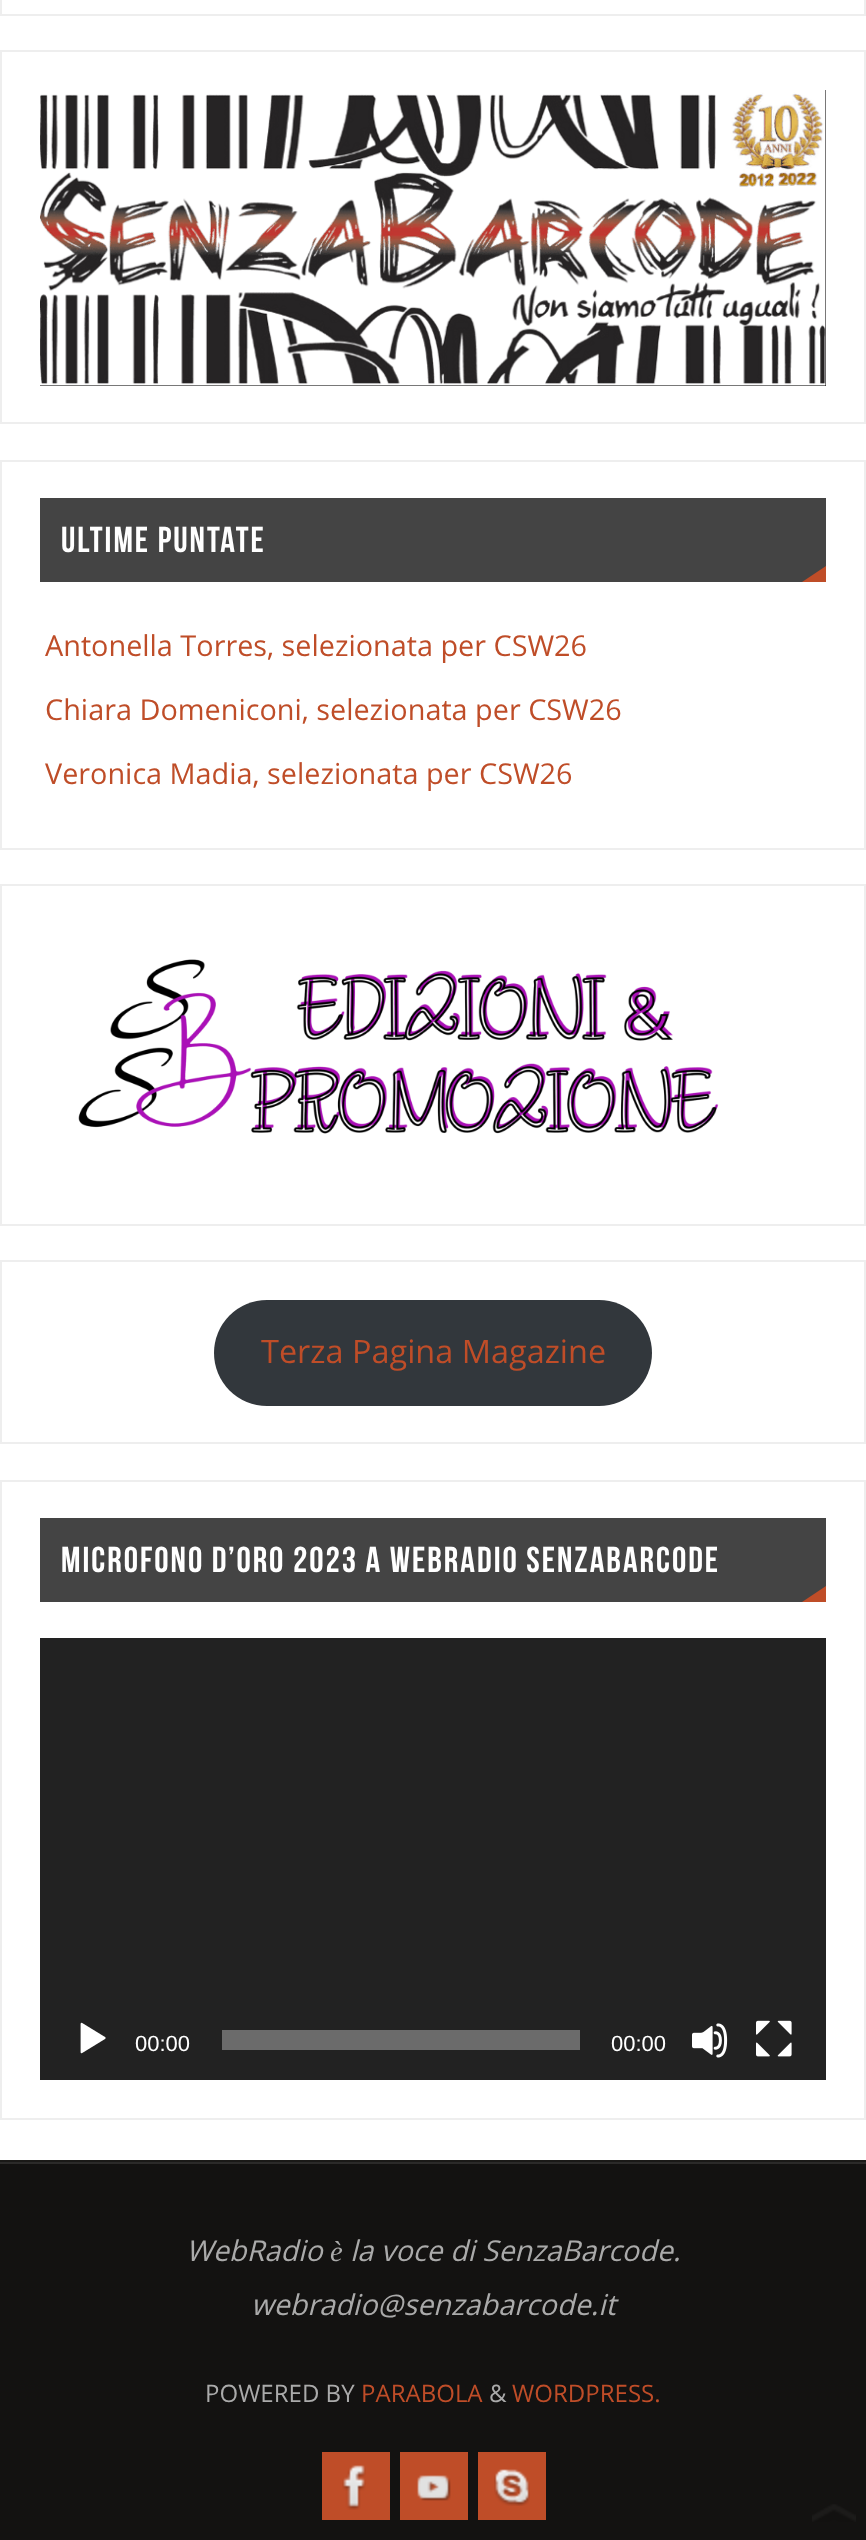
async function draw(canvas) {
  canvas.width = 866;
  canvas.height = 2540;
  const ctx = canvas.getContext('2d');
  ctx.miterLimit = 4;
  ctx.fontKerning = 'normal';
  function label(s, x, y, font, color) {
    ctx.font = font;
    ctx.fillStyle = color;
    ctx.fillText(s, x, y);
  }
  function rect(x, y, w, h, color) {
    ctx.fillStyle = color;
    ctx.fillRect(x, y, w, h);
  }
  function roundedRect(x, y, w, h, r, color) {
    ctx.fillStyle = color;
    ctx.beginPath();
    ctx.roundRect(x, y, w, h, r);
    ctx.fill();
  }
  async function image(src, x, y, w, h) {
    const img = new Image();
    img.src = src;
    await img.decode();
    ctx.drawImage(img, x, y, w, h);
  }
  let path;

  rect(0, 0, 866, 2540, '#fff');
  ctx.strokeStyle = '#eee';
  ctx.lineWidth = 2;
  ctx.strokeRect(1, -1, 864, 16);
  ctx.strokeRect(1, 51, 864, 372);
  await image('assets/img1.png', 40, 90, 786, 296);
  ctx.strokeRect(1, 461, 864, 388);
  rect(40, 498, 786, 84, '#444');
  ctx.letterSpacing = '2px';
  label('ULTIME PUNTATE', 61, 552, '36px Bebas Neue', '#fff');
  ctx.fillStyle = '#bf4d28';
  path = new Path2D('M826 582H802L826 566Z');
  ctx.fill(path);
  ctx.letterSpacing = '0px';
  label('Antonella Torres, selezionata per CSW26', 45, 656, '28.8px Open Sans', '#bf4d28');
  label('Chiara Domeniconi, selezionata per CSW26', 45, 720, '28.8px Open Sans', '#bf4d28');
  label('Veronica Madia, selezionata per CSW26', 45, 784, '28.8px Open Sans', '#bf4d28');
  ctx.strokeRect(1, 885, 864, 340);
  await image('assets/img2.png', 78, 959, 641, 175);
  ctx.strokeRect(1, 1261, 864, 182);
  roundedRect(214, 1300, 438, 106, 53, '#32373c');
  label('Terza Pagina Magazine', 261, 1363, '32.4px Open Sans', '#bf4d28');
  ctx.strokeRect(1, 1481, 864, 638);
  rect(40, 1518, 786, 84, '#444');
  ctx.letterSpacing = '2px';
  label('MICROFONO D’ORO 2023 A WEBRADIO SENZABARCODE', 61, 1572, '36px Bebas Neue', '#fff');
  ctx.fillStyle = '#bf4d28';
  path = new Path2D('M826 1602H802L826 1586Z');
  ctx.fill(path);
  rect(40, 1638, 786, 442, '#222');
  await image('assets/img3.png', 80, 2022, 26, 32);
  ctx.letterSpacing = '0px';
  label('00:00', 135, 2051, '22px Liberation Sans', '#fff');
  rect(222, 2030, 358, 20, '#6b6b6b');
  label('00:00', 611, 2051, '22px Liberation Sans', '#fff');
  await image('assets/img4.png', 692, 2023, 36, 35);
  await image('assets/img5.png', 756, 2020, 36, 37);
  rect(0, 2160, 866, 2, '#1a1917');
  rect(0, 2164, 866, 376, '#131211');
  rect(0, 2162, 866, 2, '#2b2a29');
  label('WebRadio', 186, 2261, 'italic 28.8px Open Sans', '#aaa');
  label('è', 330, 2261, 'italic 28.8px Liberation Serif', '#aaa');
  label('la voce di SenzaBarcode.', 350, 2261, 'italic 28.8px Open Sans', '#aaa');
  label('webradio@senzabarcode.it', 251, 2315, 'italic 28.8px Open Sans', '#aaa');
  label('POWERED BY', 205, 2402, '24px Open Sans', '#aaa');
  label('PARABOLA', 361, 2402, '24px Open Sans', '#bf4d28');
  label('&', 489, 2402, '24px Open Sans', '#aaa');
  label('WORDPRESS.', 512, 2402, '24px Open Sans', '#bf4d28');
  rect(322, 2452, 68, 68, '#bf4d28');
  await image('assets/img6.png', 342, 2465, 24, 45);
  rect(400, 2452, 68, 68, '#bf4d28');
  await image('assets/img7.png', 417, 2475, 34, 26);
  rect(478, 2452, 68, 68, '#bf4d28');
  await image('assets/img8.png', 494, 2469, 36, 37);
  await image('assets/img9.png', 812, 2504, 44, 18);
}

draw(document.querySelector('canvas'));
